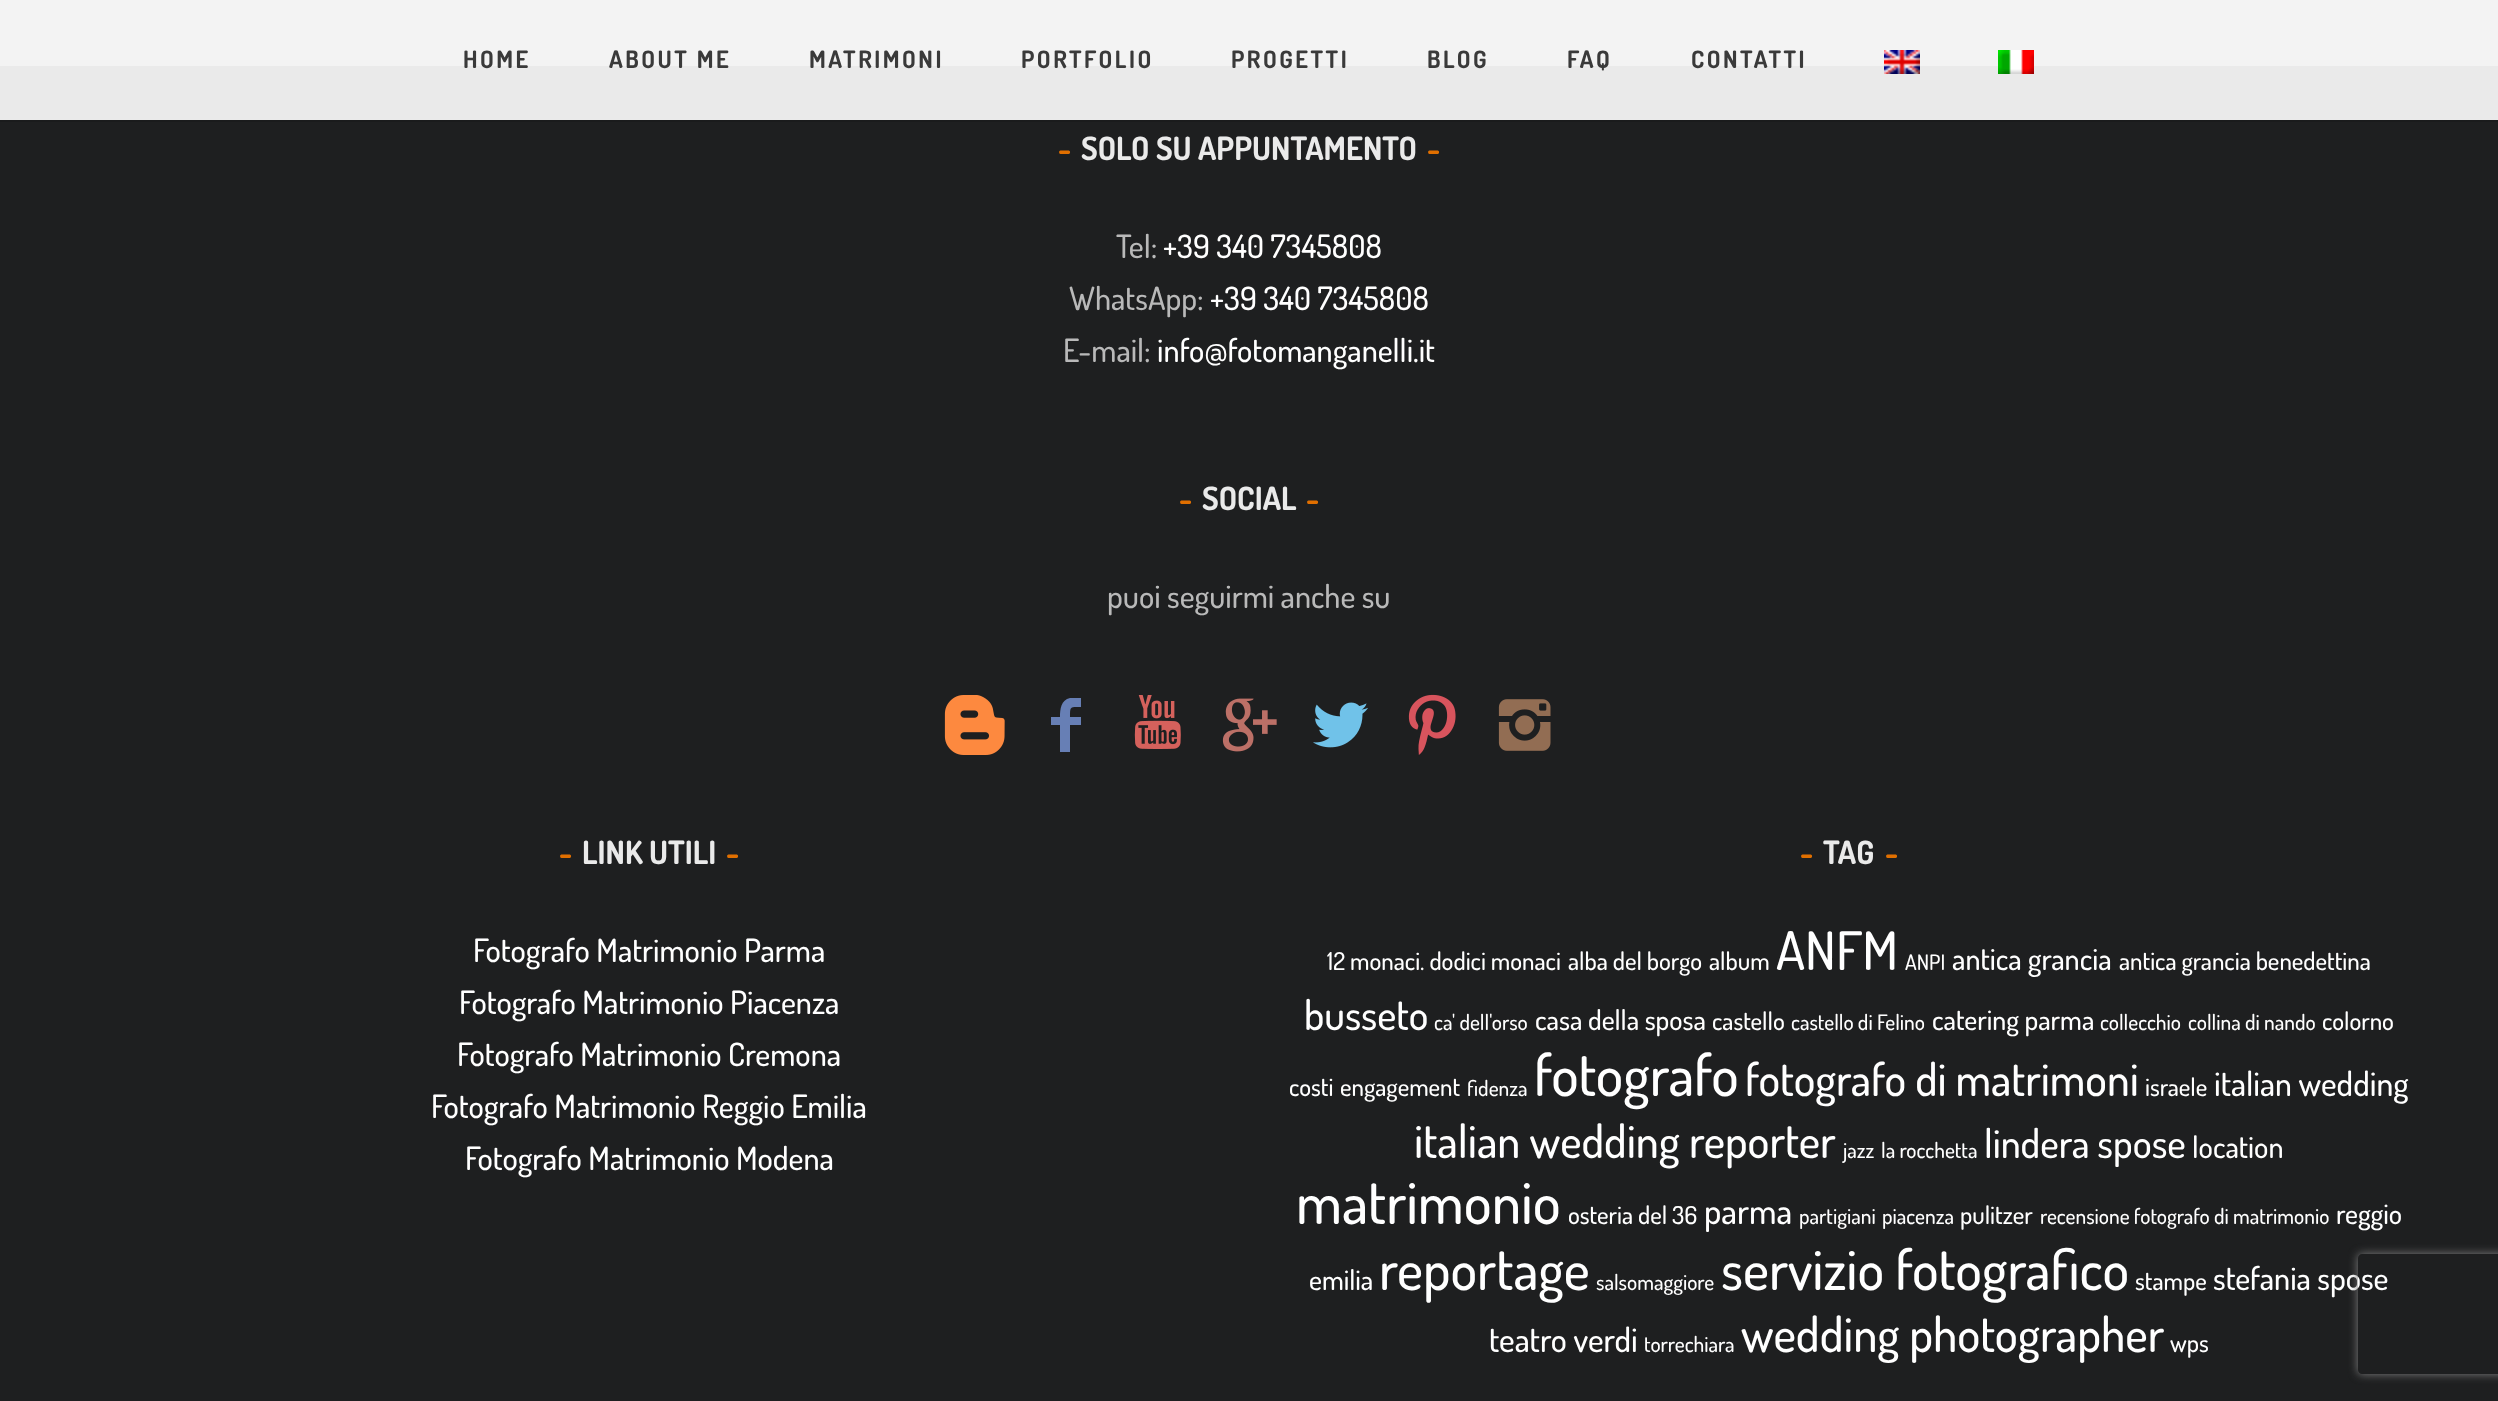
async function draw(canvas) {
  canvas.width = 2498;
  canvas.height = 1401;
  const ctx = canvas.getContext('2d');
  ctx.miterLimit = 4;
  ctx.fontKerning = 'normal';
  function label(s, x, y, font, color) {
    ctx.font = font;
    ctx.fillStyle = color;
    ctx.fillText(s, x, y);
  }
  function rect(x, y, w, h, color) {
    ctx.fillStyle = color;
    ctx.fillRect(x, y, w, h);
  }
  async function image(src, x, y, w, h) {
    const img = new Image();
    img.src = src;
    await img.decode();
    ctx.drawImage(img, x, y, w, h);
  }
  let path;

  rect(0, 0, 2498, 1401, '#fff');
  rect(0, 66, 2498, 1335, '#1e1f20');
  rect(0, 120, 2498, 2, '#1a1b1c');
  rect(0, 0, 2498, 120, '#f3f3f3f5');
  ctx.letterSpacing = '2.5px';
  label('HOME', 463, 68, 'bold 24px Dosis', '#3a3a3a');
  label('ABOUT ME', 609, 68, 'bold 24px Dosis', '#3a3a3a');
  label('MATRIMONI', 809, 68, 'bold 24px Dosis', '#3a3a3a');
  label('PORTFOLIO', 1021, 68, 'bold 24px Dosis', '#3a3a3a');
  label('PROGETTI', 1231, 68, 'bold 24px Dosis', '#3a3a3a');
  label('BLOG', 1427, 68, 'bold 24px Dosis', '#3a3a3a');
  label('FAQ', 1567, 68, 'bold 24px Dosis', '#3a3a3a');
  label('CONTATTI', 1691, 68, 'bold 24px Dosis', '#3a3a3a');
  await image('assets/img1.png', 1884, 50, 36, 24);
  await image('assets/img2.png', 1998, 50, 36, 24);
  ctx.letterSpacing = '0px';
  label('-', 1058, 160, 'bold 32px Dosis', '#e06f00');
  label('SOLO SU APPUNTAMENTO', 1081, 160, 'bold 32px Dosis', '#eaeaea');
  label('-', 1427, 160, 'bold 32px Dosis', '#e06f00');
  label('Tel:', 1116, 258, '500 32px Dosis', '#b9b9b9');
  label('+39 340 7345808', 1163, 258, '500 32px Dosis', '#fff');
  label('WhatsApp:', 1069, 310, '500 32px Dosis', '#b9b9b9');
  label('+39 340 7345808', 1210, 310, '500 32px Dosis', '#fff');
  label('E-mail:', 1063, 362, '500 32px Dosis', '#b9b9b9');
  label('info@fotomanganelli.it', 1157, 362, '500 32px Dosis', '#fff');
  label('-', 1179, 510, 'bold 32px Dosis', '#e06f00');
  label('SOCIAL', 1202, 510, 'bold 32px Dosis', '#eaeaea');
  label('-', 1306, 510, 'bold 32px Dosis', '#e06f00');
  label('puoi seguirmi anche su', 1107, 608, '500 32px Dosis', '#b9b9b9');
  await image('assets/img3.png', 944, 695, 61, 60);
  ctx.fillStyle = '#677fb5';
  path = new Path2D('M1081 707C1070 707 1070 706 1070 717H1081V725H1070V752H1060V725H1051V717H1060C1060 709 1061 700 1070 698H1081Z');
  ctx.fill(path);
  await image('assets/img4.png', 1134, 695, 47, 54);
  await image('assets/img5.png', 1222, 698, 55, 54);
  await image('assets/img6.png', 1313, 702, 55, 46);
  await image('assets/img7.png', 1408, 694, 48, 61);
  await image('assets/img8.png', 1498, 699, 53, 52);
  label('-', 559, 864, 'bold 32px Dosis', '#e06f00');
  label('LINK UTILI', 582, 864, 'bold 32px Dosis', '#eaeaea');
  label('-', 726, 864, 'bold 32px Dosis', '#e06f00');
  label('Fotografo Matrimonio Parma', 473, 962, '500 32px Dosis', '#fff');
  label('Fotografo Matrimonio Piacenza', 459, 1014, '500 32px Dosis', '#fff');
  label('Fotografo Matrimonio Cremona', 457, 1066, '500 32px Dosis', '#fff');
  label('Fotografo Matrimonio Reggio Emilia', 431, 1118, '500 32px Dosis', '#fff');
  label('Fotografo Matrimonio Modena', 465, 1170, '500 32px Dosis', '#fff');
  label('-', 1800, 864, 'bold 32px Dosis', '#e06f00');
  label('TAG', 1823, 864, 'bold 32px Dosis', '#eaeaea');
  label('-', 1885, 864, 'bold 32px Dosis', '#e06f00');
  label('12 monaci. dodici monaci', 1327, 970, '500 24.75px Dosis', '#fff');
  label('alba del borgo', 1568, 970, '500 24.75px Dosis', '#fff');
  label('album', 1709, 970, '500 24.75px Dosis', '#fff');
  label('ANFM', 1776, 970, '500 53px Dosis', '#fff');
  label('ANPI', 1905, 970, '500 21.3px Dosis', '#fff');
  label('antica grancia', 1952, 970, '500 30px Dosis', '#fff');
  label('antica grancia benedettina', 2119, 970, '500 24.75px Dosis', '#fff');
  label('busseto', 1304, 1030, '500 41px Dosis', '#fff');
  label('ca\' dell\'orso', 1434, 1030, '500 21.3px Dosis', '#fff');
  label('casa della sposa', 1535, 1030, '500 27.75px Dosis', '#fff');
  label('castello', 1712, 1030, '500 24.75px Dosis', '#fff');
  label('castello di Felino', 1791, 1030, '500 21.3px Dosis', '#fff');
  label('catering parma', 1932, 1030, '500 27.75px Dosis', '#fff');
  label('collecchio', 2100, 1030, '500 21.3px Dosis', '#fff');
  label('collina di nando', 2188, 1030, '500 21.3px Dosis', '#fff');
  label('colorno', 2322, 1030, '500 24.75px Dosis', '#fff');
  label('costi', 1289, 1096, '500 24.75px Dosis', '#fff');
  label('engagement', 1340, 1096, '500 24.75px Dosis', '#fff');
  label('fidenza', 1467, 1096, '500 21.3px Dosis', '#fff');
  label('fotografo', 1534, 1096, '500 57.5px Dosis', '#fff');
  label('fotografo di matrimoni', 1745, 1096, '500 45.25px Dosis', '#fff');
  label('israele', 2145, 1096, '500 24.75px Dosis', '#fff');
  label('italian wedding', 2214, 1096, '500 33.5px Dosis', '#fff');
  label('italian wedding reporter', 1414, 1158, '500 45.75px Dosis', '#fff');
  label('jazz', 1843, 1158, '500 21.3px Dosis', '#fff');
  label('la rocchetta', 1881, 1158, '500 21.3px Dosis', '#fff');
  label('lindera spose', 1984, 1158, '500 39.75px Dosis', '#fff');
  label('location', 2192, 1158, '500 30px Dosis', '#fff');
  label('matrimonio', 1296, 1224, '500 58.5px Dosis', '#fff');
  label('osteria del 36', 1568, 1224, '500 24.75px Dosis', '#fff');
  label('parma', 1704, 1224, '500 35px Dosis', '#fff');
  label('partigiani', 1799, 1224, '500 21.3px Dosis', '#fff');
  label('piacenza', 1882, 1224, '500 21.3px Dosis', '#fff');
  label('pulitzer', 1960, 1224, '500 24.75px Dosis', '#fff');
  label('recensione fotografo di matrimonio', 2040, 1224, '500 21.3px Dosis', '#fff');
  label('reggio', 2336, 1224, '500 27.75px Dosis', '#fff');
  label('emilia', 1309, 1290, '500 27.75px Dosis', '#fff');
  label('reportage', 1379, 1290, '500 55.75px Dosis', '#fff');
  label('salsomaggiore', 1596, 1290, '500 21.3px Dosis', '#fff');
  label('servizio fotografico', 1721, 1290, '500 55.75px Dosis', '#fff');
  label('stampe', 2135, 1290, '500 24.75px Dosis', '#fff');
  label('stefania spose', 2213, 1290, '500 32px Dosis', '#fff');
  label('teatro verdi', 1489, 1352, '500 33.5px Dosis', '#fff');
  label('torrechiara', 1644, 1352, '500 21.3px Dosis', '#fff');
  label('wedding photographer', 1741, 1352, '500 48.25px Dosis', '#fff');
  label('wps', 2170, 1352, '500 24.75px Dosis', '#fff');
  ctx.save();
  path = new Path2D('M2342 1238H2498V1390H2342ZM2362 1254H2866C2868 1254 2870 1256 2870 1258V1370C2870 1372 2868 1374 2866 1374H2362C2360 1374 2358 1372 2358 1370V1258C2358 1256 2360 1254 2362 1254Z');
  ctx.clip(path, 'evenodd');
  ctx.fillStyle = '#808080';
  ctx.filter = 'blur(5px)';
  ctx.beginPath();
  ctx.roundRect(2358, 1254, 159, 120, 4);
  ctx.fill();
  ctx.filter = 'none';
  ctx.restore();
}

draw(document.querySelector('canvas'));
